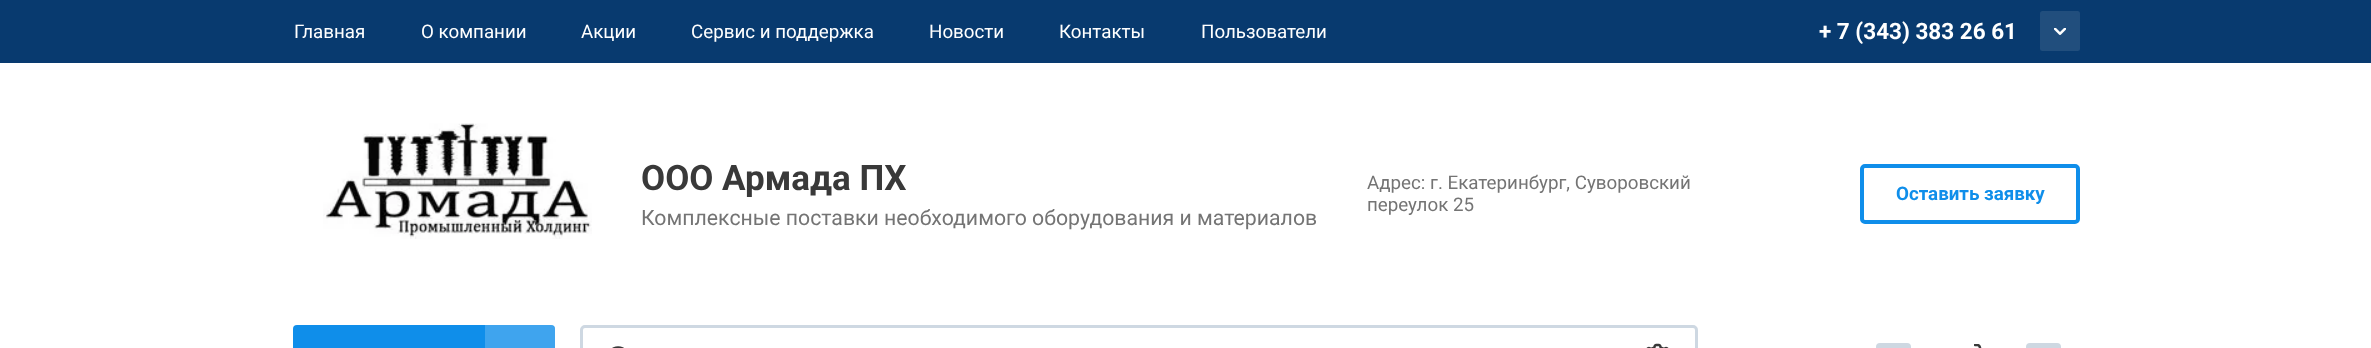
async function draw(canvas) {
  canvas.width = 2371;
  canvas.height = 348;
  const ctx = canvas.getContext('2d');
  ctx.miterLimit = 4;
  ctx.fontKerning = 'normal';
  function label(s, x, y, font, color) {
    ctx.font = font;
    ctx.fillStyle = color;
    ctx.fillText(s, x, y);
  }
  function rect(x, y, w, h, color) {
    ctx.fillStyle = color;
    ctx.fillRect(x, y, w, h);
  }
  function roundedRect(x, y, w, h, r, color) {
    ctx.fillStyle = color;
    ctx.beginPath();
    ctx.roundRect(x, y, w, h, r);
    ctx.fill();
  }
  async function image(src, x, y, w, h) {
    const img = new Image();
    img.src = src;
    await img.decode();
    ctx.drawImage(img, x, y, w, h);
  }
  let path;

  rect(0, 0, 2371, 348, '#fff');
  rect(0, 0, 2371, 63, '#083a6f');
  label('Главная', 294, 38, '18.75px Roboto', '#fff');
  label('О компании', 421, 38, '18.75px Roboto', '#fff');
  label('Акции', 581, 38, '18.75px Roboto', '#fff');
  label('Сервис и поддержка', 691, 38, '18.75px Roboto', '#fff');
  label('Новости', 929, 38, '18.75px Roboto', '#fff');
  label('Контакты', 1059, 38, '18.75px Roboto', '#fff');
  label('Пользователи', 1201, 38, '18.75px Roboto', '#fff');
  label('+ 7 (343) 383 26 61', 1819, 39, 'bold 22.5px Roboto', '#fff');
  roundedRect(2040, 11, 40, 40, 2.5, '#214e7d');
  await image('assets/img1.png', 2054, 28, 12, 7);
  await image('assets/img2.png', 323, 123, 269, 116);
  label('ООО Армада ПХ', 641, 190, 'bold 35px Roboto', '#393939');
  label('Комплексные поставки необходимого оборудования и материалов', 641, 225, '21.25px Roboto', '#747474');
  label('Адрес: г. Екатеринбург, Суворовский', 1367, 189, '18.75px Roboto', '#747474');
  label('переулок 25', 1367, 211, '18.75px Roboto', '#747474');
  ctx.beginPath();
  ctx.roundRect(1862, 166, 216, 56, 3);
  ctx.strokeStyle = '#0f8eea';
  ctx.lineWidth = 4;
  ctx.stroke();
  label('Оставить заявку', 1896, 200, 'bold 18.75px Roboto', '#0f8eea');
  roundedRect(293, 325, 262, 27, 4, '#0f8eea');
  ctx.fillStyle = '#ffffff33';
  path = new Path2D('M485 325H551C553 325 555 327 555 329V348C555 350 553 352 551 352H485Z');
  ctx.fill(path);
  ctx.beginPath();
  ctx.roundRect(581.5, 326.5, 1115, 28, 3.5);
  ctx.strokeStyle = '#ced8e2';
  ctx.lineWidth = 3;
  ctx.stroke();
  await image('assets/img3.png', 612, 346, 12, 2);
  await image('assets/img4.png', 1646, 343, 23, 5);
  roundedRect(1876, 343, 35, 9, 4, '#ced8e2');
  await image('assets/img5.png', 1974, 344, 8, 4);
  roundedRect(2026, 343, 35, 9, 4, '#ced8e2');
}

draw(document.querySelector('canvas'));
